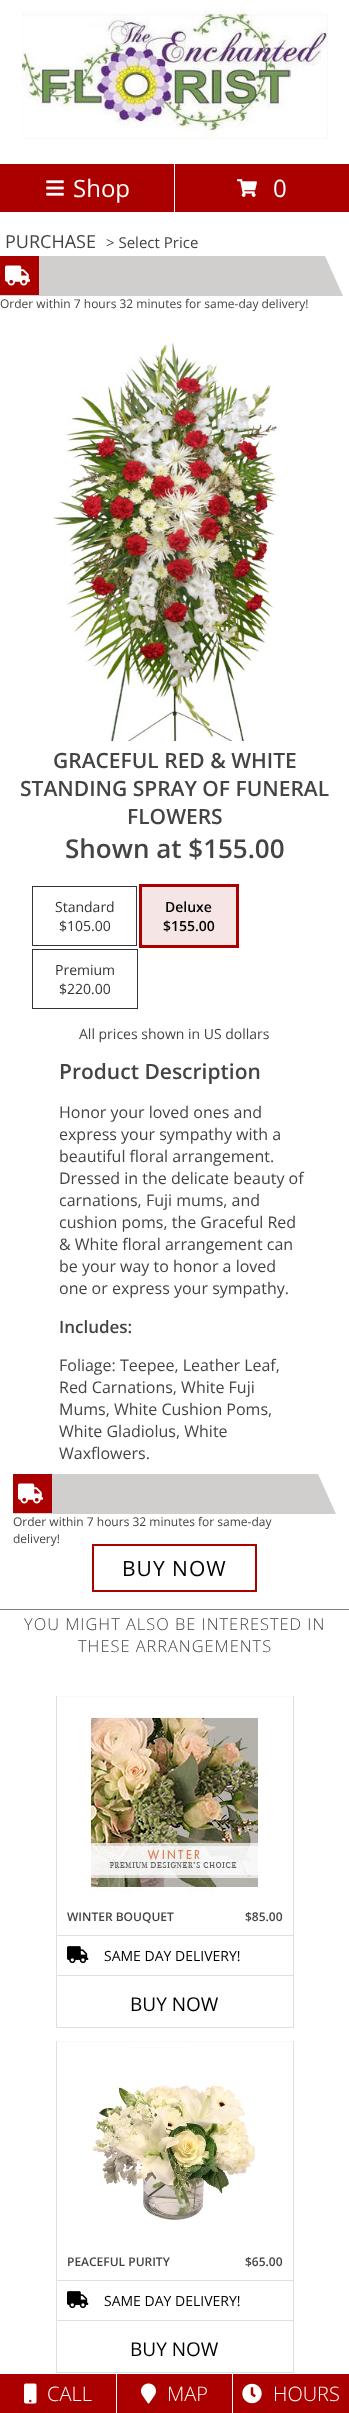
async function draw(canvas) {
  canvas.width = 349;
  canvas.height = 2413;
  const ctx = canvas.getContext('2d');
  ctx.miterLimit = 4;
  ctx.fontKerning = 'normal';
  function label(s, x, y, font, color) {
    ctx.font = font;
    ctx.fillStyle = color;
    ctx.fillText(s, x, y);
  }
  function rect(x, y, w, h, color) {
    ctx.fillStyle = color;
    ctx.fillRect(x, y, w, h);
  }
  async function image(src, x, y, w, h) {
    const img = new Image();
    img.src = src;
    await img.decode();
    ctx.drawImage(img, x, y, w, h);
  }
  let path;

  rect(0, 0, 349, 2413, '#fff');
  await image('assets/img1.png', 22, 8, 306, 132);
  rect(0, 164, 174, 48, '#ab0000');
  await image('assets/img2.png', 46, 180, 18, 16);
  label('Shop', 73, 197, '24px Open Sans', '#fff');
  rect(175, 164, 174, 48, '#ab0000');
  await image('assets/img3.png', 237, 179, 20, 18);
  label('0', 273, 197, '24px Open Sans', '#fff');
  label('PURCHASE', 5, 248, '18px Open Sans', '#444');
  label('> Select Price', 106, 248, '15px Open Sans', '#444');
  ctx.fillStyle = '#d0cfcd';
  path = new Path2D('M343 296H0V256H325Z');
  ctx.fill(path);
  rect(0, 256, 39, 39, '#ab0000');
  await image('assets/img4.png', 5, 265, 25, 21);
  label('Order within 7 hours 32 minutes for same-day delivery!', 0, 308, '12px Open Sans', '#444');
  await image('assets/img5.png', 53, 342, 228, 399);
  label('GRACEFUL RED & WHITE', 53, 768, '600 21px Open Sans', '#444');
  label('STANDING SPRAY OF FUNERAL', 20, 796, '600 21px Open Sans', '#444');
  label('FLOWERS', 127, 824, '600 21px Open Sans', '#444');
  label('Shown at $155.00', 65, 858, '600 26px Open Sans', '#444');
  ctx.strokeStyle = '#333';
  ctx.strokeRect(32.5, 886.5, 104, 59);
  label('Standard', 55, 912, '14px Open Sans', '#333');
  label('$105.00', 59, 931, '14px Open Sans', '#333');
  ctx.strokeStyle = '#ab0000';
  ctx.lineWidth = 3;
  ctx.strokeRect(140.5, 885.5, 97, 61);
  rect(142, 887, 94, 58, '#f6e5e5');
  label('Deluxe', 165, 912, '600 14px Open Sans', '#000');
  label('$155.00', 163, 931, '600 14px Open Sans', '#000');
  ctx.strokeStyle = '#333';
  ctx.lineWidth = 1;
  ctx.strokeRect(32.5, 949.5, 105, 59);
  label('Premium', 55, 975, '14px Open Sans', '#333');
  label('$220.00', 59, 994, '14px Open Sans', '#333');
  label('All prices shown in US dollars', 79, 1039, '14px Open Sans', '#444');
  label('Product Description', 59, 1079, '600 21px Open Sans', '#444');
  label('Honor your loved ones and', 59, 1118, '16px Open Sans', '#444');
  label('express your sympathy with a', 59, 1140, '16px Open Sans', '#444');
  label('beautiful floral arrangement.', 59, 1162, '16px Open Sans', '#444');
  label('Dressed in the delicate beauty of', 59, 1184, '16px Open Sans', '#444');
  label('carnations, Fuji mums, and', 59, 1206, '16px Open Sans', '#444');
  label('cushion poms, the Graceful Red', 59, 1228, '16px Open Sans', '#444');
  label('& White floral arrangement can', 59, 1250, '16px Open Sans', '#444');
  label('be your way to honor a loved', 59, 1272, '16px Open Sans', '#444');
  label('one or express your sympathy.', 59, 1294, '16px Open Sans', '#444');
  label('Includes:', 59, 1333, '600 17px Open Sans', '#444');
  label('Foliage: Teepee, Leather Leaf,', 59, 1371, '16px Open Sans', '#444');
  label('Red Carnations, White Fuji', 59, 1393, '16px Open Sans', '#444');
  label('Mums, White Cushion Poms,', 59, 1415, '16px Open Sans', '#444');
  label('White Gladiolus, White', 59, 1437, '16px Open Sans', '#444');
  label('Waxflowers.', 59, 1459, '16px Open Sans', '#444');
  ctx.fillStyle = '#d0cfcd';
  path = new Path2D('M336 1514H13V1474H318Z');
  ctx.fill(path);
  rect(13, 1474, 39, 39, '#ab0000');
  await image('assets/img4.png', 18, 1483, 25, 21);
  label('Order within 7 hours 32 minutes for same-day', 13, 1526, '12px Open Sans', '#444');
  label('delivery!', 13, 1543, '12px Open Sans', '#444');
  ctx.strokeStyle = '#ab0000';
  ctx.lineWidth = 2;
  ctx.strokeRect(93, 1545, 163, 46);
  ctx.letterSpacing = '1px';
  label('BUY NOW', 122, 1576, '21px Open Sans', '#000');
  rect(0, 1609, 349, 1, '#808080');
  label('YOU MIGHT ALSO BE INTERESTED IN', 24, 1630, '300 16.4px Open Sans', '#444');
  label('THESE ARRANGEMENTS', 78, 1652, '300 16.4px Open Sans', '#444');
  rect(56, 1696, 238, 1, '#f9f9f9');
  rect(293, 1696, 1, 332, '#e2dedd');
  rect(56, 2027, 238, 1, '#e2dedd');
  rect(56, 1696, 1, 332, '#e2dedd');
  await image('assets/img6.png', 91, 1717, 167, 176);
  ctx.letterSpacing = '0px';
  label('WINTER BOUQUET', 67, 1921, '600 12px Open Sans', '#444');
  label('$85.00', 245, 1921, '600 12px Open Sans', '#444');
  rect(57, 1935, 236, 1, '#e2dedd');
  await image('assets/img7.png', 67, 1946, 22, 18);
  label('SAME DAY DELIVERY!', 104, 1961, '14px Open Sans', '#000');
  rect(57, 1975, 236, 1, '#e2dedd');
  label('BUY NOW', 130, 2011, '19px Open Sans', '#000');
  rect(56, 2041, 238, 1, '#f9f9f9');
  rect(293, 2041, 1, 332, '#e2dedd');
  rect(56, 2372, 238, 1, '#e2dedd');
  rect(56, 2041, 1, 332, '#e2dedd');
  await image('assets/img8.png', 91, 2047, 165, 173);
  label('PEACEFUL PURITY', 67, 2266, '600 12px Open Sans', '#444');
  label('$65.00', 245, 2266, '600 12px Open Sans', '#444');
  rect(57, 2280, 236, 1, '#e2dedd');
  await image('assets/img7.png', 67, 2291, 22, 18);
  label('SAME DAY DELIVERY!', 104, 2306, '14px Open Sans', '#000');
  rect(57, 2320, 236, 1, '#e2dedd');
  label('BUY NOW', 130, 2356, '19px Open Sans', '#000');
  rect(0, 2374, 116, 39, '#ab0000');
  await image('assets/img9.png', 24, 2383, 13, 21);
  label('CALL', 47, 2401, '300 20px Open Sans', '#fff');
  rect(117, 2374, 115, 39, '#ab0000');
  await image('assets/img10.png', 141, 2383, 15, 21);
  label('MAP', 167, 2401, '300 20px Open Sans', '#fff');
  rect(233, 2374, 116, 39, '#ab0000');
  await image('assets/img11.png', 242, 2383, 20, 21);
  label('HOURS', 273, 2401, '300 20px Open Sans', '#fff');
}

draw(document.querySelector('canvas'));
